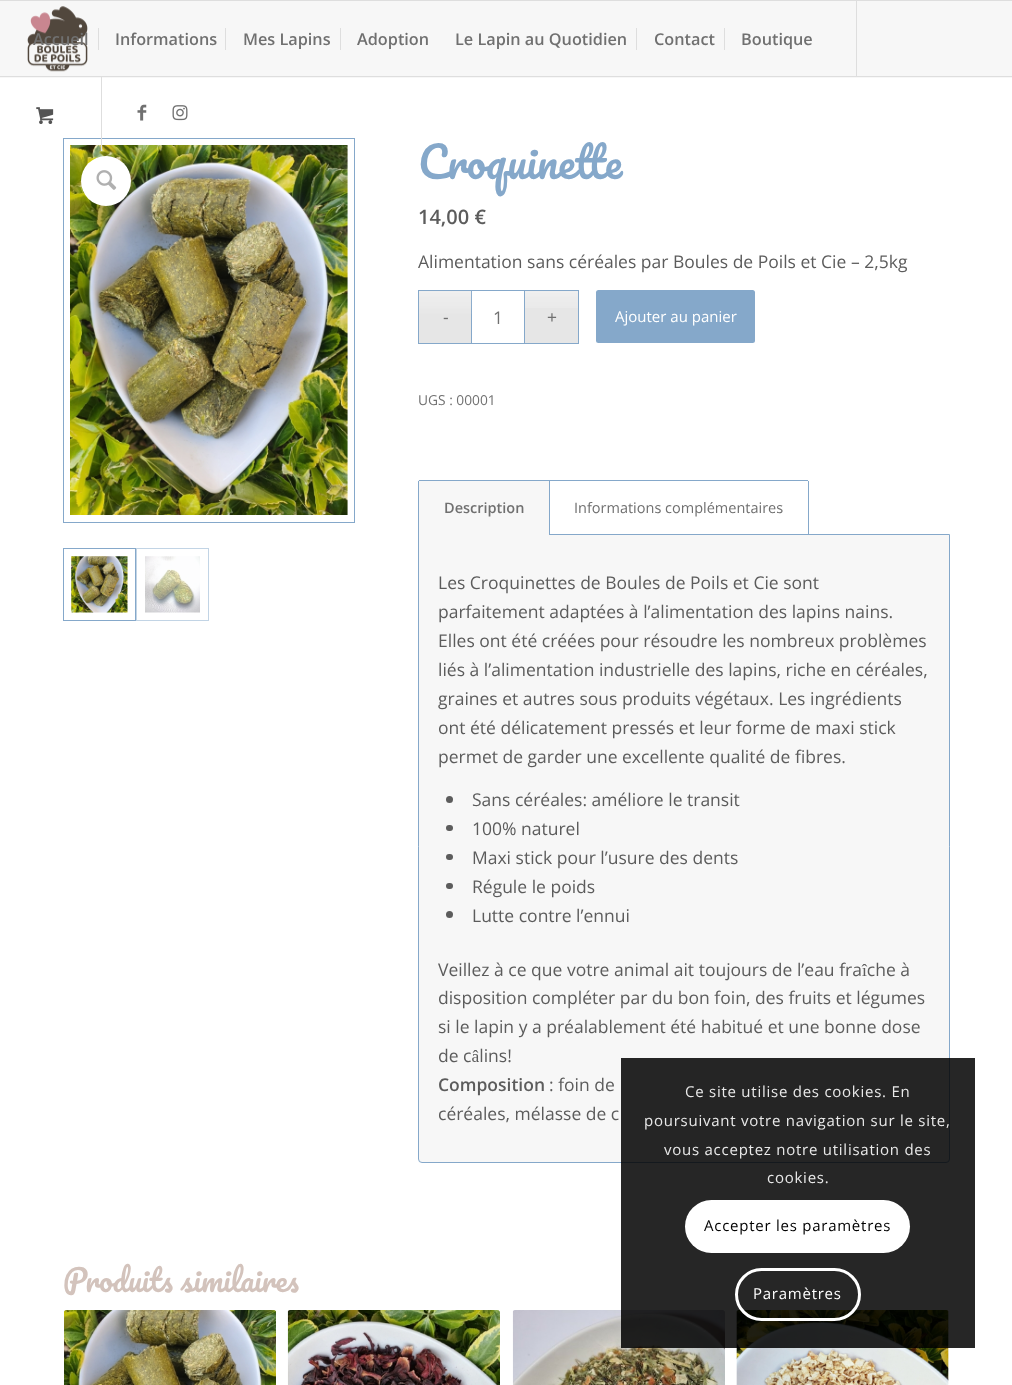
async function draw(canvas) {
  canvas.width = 1012;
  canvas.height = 1385;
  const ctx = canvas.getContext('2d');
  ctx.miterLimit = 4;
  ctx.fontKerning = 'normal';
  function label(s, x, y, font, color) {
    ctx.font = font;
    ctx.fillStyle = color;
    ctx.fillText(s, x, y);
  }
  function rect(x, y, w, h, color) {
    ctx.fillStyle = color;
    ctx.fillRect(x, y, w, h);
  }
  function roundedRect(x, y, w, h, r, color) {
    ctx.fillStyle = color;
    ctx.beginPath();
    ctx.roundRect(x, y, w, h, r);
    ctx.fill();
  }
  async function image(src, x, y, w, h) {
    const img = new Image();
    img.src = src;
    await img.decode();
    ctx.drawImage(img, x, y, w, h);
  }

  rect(0, 0, 1012, 1385, '#fff');
  rect(0, 1, 1012, 77, '#f7f7f7');
  rect(0, 0, 1012, 1, '#dedede');
  rect(0, 76, 1012, 1, '#dedede');
  await image('assets/img1.png', 27, 6, 61, 66);
  rect(856, 1, 1, 75, '#dedede');
  label('Accueil', 33, 45, '600 16.25px Open Sans', '#707070');
  label('Informations', 115, 45, '600 16.25px Open Sans', '#707070');
  rect(98, 28, 1, 22, '#dedede');
  label('Mes Lapins', 243, 45, '600 16.25px Open Sans', '#707070');
  rect(225, 28, 1, 22, '#dedede');
  label('Adoption', 357, 45, '600 16.25px Open Sans', '#707070');
  rect(340, 28, 1, 22, '#dedede');
  label('Le Lapin au Quotidien', 455, 45, '600 16.25px Open Sans', '#707070');
  label('Contact', 654, 45, '600 16.25px Open Sans', '#707070');
  rect(636, 28, 1, 22, '#dedede');
  label('Boutique', 741, 45, '600 16.25px Open Sans', '#707070');
  rect(724, 28, 1, 22, '#dedede');
  ctx.strokeStyle = '#85a8ca';
  ctx.strokeRect(63.5, 138.5, 291, 384);
  await image('assets/img5.png', 70, 145, 278, 370);
  rect(101, 76, 1, 75, '#dedede');
  await image('assets/img2.png', 36, 107, 18, 17);
  await image('assets/img3.png', 137, 104, 10, 17);
  await image('assets/img4.png', 172, 105, 16, 16);
  ctx.strokeRect(63.5, 548.5, 72, 72);
  await image('assets/img6.png', 71, 556, 57, 57);
  ctx.strokeStyle = '#c2d4e5';
  ctx.strokeRect(136.5, 548.5, 72, 72);
  await image('assets/img7.png', 145, 556, 55, 57);
  ctx.fillStyle = '#fff';
  ctx.beginPath();
  ctx.arc(106, 181, 25, 0, 2 * Math.PI);
  ctx.fill();
  await image('assets/img8.png', 96, 170, 21, 20);
  label('Croquinette', 418, 179, '42.5px Pacifico', '#85a8ca');
  label('14,00 €', 418, 224, '600 20px Open Sans', '#5c5c5c');
  label('Alimentation sans céréales par Boules de Poils et Cie – 2,5kg', 418, 268, '17.5px Open Sans', '#5c5c5c');
  rect(419, 291, 52, 52, '#e6e6e6');
  ctx.strokeStyle = '#85a8ca';
  ctx.strokeRect(471.5, 290.5, 53, 53);
  await image('assets/img9.png', 419, 291, 53, 23);
  rect(525, 291, 53, 52, '#e6e6e6');
  await image('assets/img10.png', 525, 291, 53, 17);
  label('-', 443, 323, '17px Liberation Sans', '#707070');
  rect(418, 290, 53, 1, '#85a8ca');
  rect(418, 343, 53, 1, '#85a8ca');
  rect(418, 290, 1, 54, '#85a8ca');
  label('1', 493, 324, '17.5px Open Sans', '#707070');
  label('+', 547, 323, '17px Liberation Sans', '#707070');
  rect(525, 290, 54, 1, '#85a8ca');
  rect(578, 290, 1, 54, '#85a8ca');
  rect(525, 343, 54, 1, '#85a8ca');
  roundedRect(596, 290, 159, 53, 2.5, '#85a8ca');
  label('Ajouter au panier', 615, 322, '15px Open Sans', '#fff');
  label('UGS : 00001', 418, 405, '13.75px Open Sans', '#707070');
  ctx.fillStyle = '#f7f7f7';
  ctx.beginPath();
  ctx.roundRect(418.5, 534.5, 531, 628, [0, 0, 3.5, 3.5]);
  ctx.fill();
  ctx.stroke();
  rect(418, 480, 131, 55, '#f7f7f7');
  rect(549, 480, 259, 1, '#85a8ca');
  rect(419, 480, 131, 1, '#85a8ca');
  rect(549, 480, 1, 55, '#85a8ca');
  rect(418, 481, 1, 54, '#85a8ca');
  label('Description', 444, 513, '600 14.5px Open Sans', '#707070');
  rect(808, 481, 1, 54, '#85a8ca');
  label('Informations complémentaires', 574, 513, '14.5px Open Sans', '#707070');
  label('Les Croquinettes de Boules de Poils et Cie sont', 438, 589, '17.5px Open Sans', '#5c5c5c');
  label('parfaitement adaptées à l’alimentation des lapins nains.', 438, 618, '17.5px Open Sans', '#5c5c5c');
  label('Elles ont été créées pour résoudre les nombreux problèmes', 438, 647, '17.5px Open Sans', '#5c5c5c');
  label('liés à l’alimentation industrielle des lapins, riche en céréales,', 438, 676, '17.5px Open Sans', '#5c5c5c');
  label('graines et autres sous produits végétaux. Les ingrédients', 438, 705, '17.5px Open Sans', '#5c5c5c');
  label('ont été délicatement pressés et leur forme de maxi stick', 438, 734, '17.5px Open Sans', '#5c5c5c');
  label('permet de garder une excellente qualité de fibres.', 438, 763, '17.5px Open Sans', '#5c5c5c');
  ctx.beginPath();
  ctx.arc(449.5, 799.5, 3.5, 0, 2 * Math.PI);
  ctx.fill();
  label('Sans céréales: améliore le transit', 472, 806, '17.5px Open Sans', '#5c5c5c');
  roundedRect(446, 825, 7, 6, 3, '#5c5c5c');
  label('100% naturel', 472, 835, '17.5px Open Sans', '#5c5c5c');
  roundedRect(446, 854, 7, 6, 3, '#5c5c5c');
  label('Maxi stick pour l’usure des dents', 472, 864, '17.5px Open Sans', '#5c5c5c');
  roundedRect(446, 883, 7, 6, 3, '#5c5c5c');
  label('Régule le poids', 472, 893, '17.5px Open Sans', '#5c5c5c');
  ctx.beginPath();
  ctx.arc(449.5, 914.5, 3.5, 0, 2 * Math.PI);
  ctx.fill();
  label('Lutte contre l’ennui', 472, 922, '17.5px Open Sans', '#5c5c5c');
  label('Veillez à ce que votre animal ait toujours de l’eau fraîche à', 438, 976, '17.5px Open Sans', '#5c5c5c');
  label('disposition compléter par du bon foin, des fruits et légumes', 438, 1004, '17.5px Open Sans', '#5c5c5c');
  label('si le lapin y a préalablement été habitué et une bonne dose', 438, 1033, '17.5px Open Sans', '#5c5c5c');
  label('de câlins!', 438, 1062, '17.5px Open Sans', '#5c5c5c');
  label('Composition', 438, 1091, '600 17.5px Open Sans', '#5c5c5c');
  label(': foin de', 549, 1091, '17.5px Open Sans', '#5c5c5c');
  label('céréales, mélasse de c', 438, 1120, '17.5px Open Sans', '#5c5c5c');
  label('Produits similaires', 63, 1292, '30px Pacifico', '#d3c3bc');
  await image('assets/img11.png', 64, 1310, 212, 75);
  await image('assets/img12.png', 287, 1310, 213, 75);
  await image('assets/img13.png', 512, 1310, 213, 75);
  await image('assets/img14.png', 736, 1310, 213, 75);
  rect(621, 1058, 354, 290, '#000000d9');
  ctx.letterSpacing = '0.75px';
  label('Ce site utilise des cookies. En', 685, 1097, '15px Open Sans', '#e9e9e9');
  label('poursuivant votre navigation sur le site,', 644, 1126, '15px Open Sans', '#e9e9e9');
  label('vous acceptez notre utilisation des', 664, 1155, '15px Open Sans', '#e9e9e9');
  label('cookies.', 767, 1183, '15px Open Sans', '#e9e9e9');
  roundedRect(685, 1200, 225, 53, 26.5, '#fff');
  label('Accepter les paramètres', 704, 1231, '15px Open Sans', '#000');
  ctx.beginPath();
  ctx.roundRect(736.5, 1269.5, 123, 50, 25);
  ctx.strokeStyle = '#fff';
  ctx.lineWidth = 3;
  ctx.stroke();
  label('Paramètres', 753, 1299, '15px Open Sans', '#fff');
}

draw(document.querySelector('canvas'));
